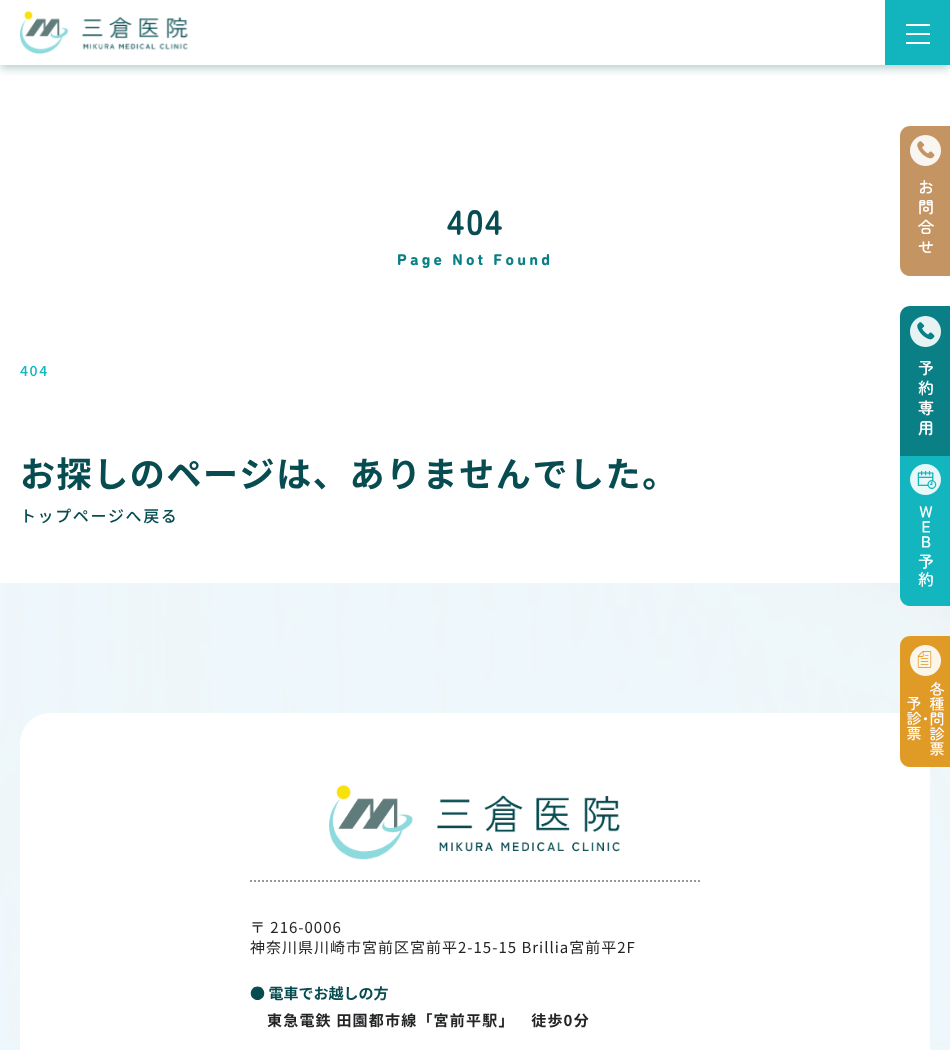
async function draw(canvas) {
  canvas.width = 950;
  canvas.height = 1050;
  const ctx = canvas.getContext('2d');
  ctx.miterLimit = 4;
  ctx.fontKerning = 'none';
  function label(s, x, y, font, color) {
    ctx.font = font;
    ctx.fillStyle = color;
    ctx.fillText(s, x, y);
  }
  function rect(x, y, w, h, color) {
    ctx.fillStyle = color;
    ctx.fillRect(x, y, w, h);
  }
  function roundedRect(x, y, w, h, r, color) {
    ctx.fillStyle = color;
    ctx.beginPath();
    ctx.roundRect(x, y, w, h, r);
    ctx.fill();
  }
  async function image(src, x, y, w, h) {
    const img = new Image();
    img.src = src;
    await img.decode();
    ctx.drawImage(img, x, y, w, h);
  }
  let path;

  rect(0, 0, 950, 1050, '#fff');
  ctx.save();
  ctx.beginPath();
  ctx.rect(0, 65, 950, 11);
  ctx.clip();
  ctx.fillStyle = '#29696859';
  ctx.filter = 'blur(5px)';
  ctx.beginPath();
  ctx.rect(0, 3, 950, 65);
  ctx.fill();
  ctx.filter = 'none';
  ctx.restore();
  await image('assets/img1.png', 20, 11, 168, 43);
  rect(885, 0, 65, 65, '#12b5be');
  rect(906, 24, 24, 2, '#fff');
  rect(906, 33, 24, 2, '#fff');
  rect(906, 42, 24, 2, '#fff');
  ctx.letterSpacing = '1.6px';
  label('404', 447, 235, 'bold 35px Zen Maru Gothic', '#074c51');
  ctx.letterSpacing = '3.25px';
  label('Page Not Found', 397, 265, 'bold 16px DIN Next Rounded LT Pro', '#0a8086');
  ctx.letterSpacing = '1.6px';
  label('404', 20, 376, '500 14px Noto Sans JP', '#12b5be');
  label('お探しのページは、ありませんでした。', 20, 487, 'bold 35px Noto Sans JP', '#074c51');
  label('トップページへ戻る', 20, 522, '500 16px Noto Sans JP', '#074c51');
  await image('assets/img2.png', 900, 126, 50, 150);
  await image('assets/img3.png', 900, 306, 50, 150);
  await image('assets/img6.png', 0, 583, 950, 467);
  await image('assets/img4.png', 900, 456, 50, 150);
  roundedRect(20, 713, 910, 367, 30, '#fff');
  await image('assets/img5.png', 900, 636, 50, 131);
  path = new Path2D('M250 881H700');
  ctx.strokeStyle = '#999';
  ctx.lineWidth = 2;
  ctx.setLineDash([2, 2]);
  ctx.stroke(path);
  await image('assets/img7.png', 329, 785, 291, 75);
  ctx.letterSpacing = '1px';
  label('〒 216-0006', 250, 933, '15px Noto Sans JP', '#222426');
  label('神奈川県川崎市宮前区宮前平2-15-15 Brillia宮前平2F', 250, 953, '15px Noto Sans JP', '#222426');
  ctx.letterSpacing = '0px';
  label('● 電車でお越しの方', 250, 999, 'bold 15px Noto Sans JP', '#074c51');
  ctx.letterSpacing = '1.2px';
  label('東急電鉄 田園都市線「宮前平駅」', 267, 1026, 'bold 15px Noto Sans JP', '#222426');
  label('　徒歩0分', 515, 1026, 'bold 15px Noto Sans JP', '#222426');
}

draw(document.querySelector('canvas'));
